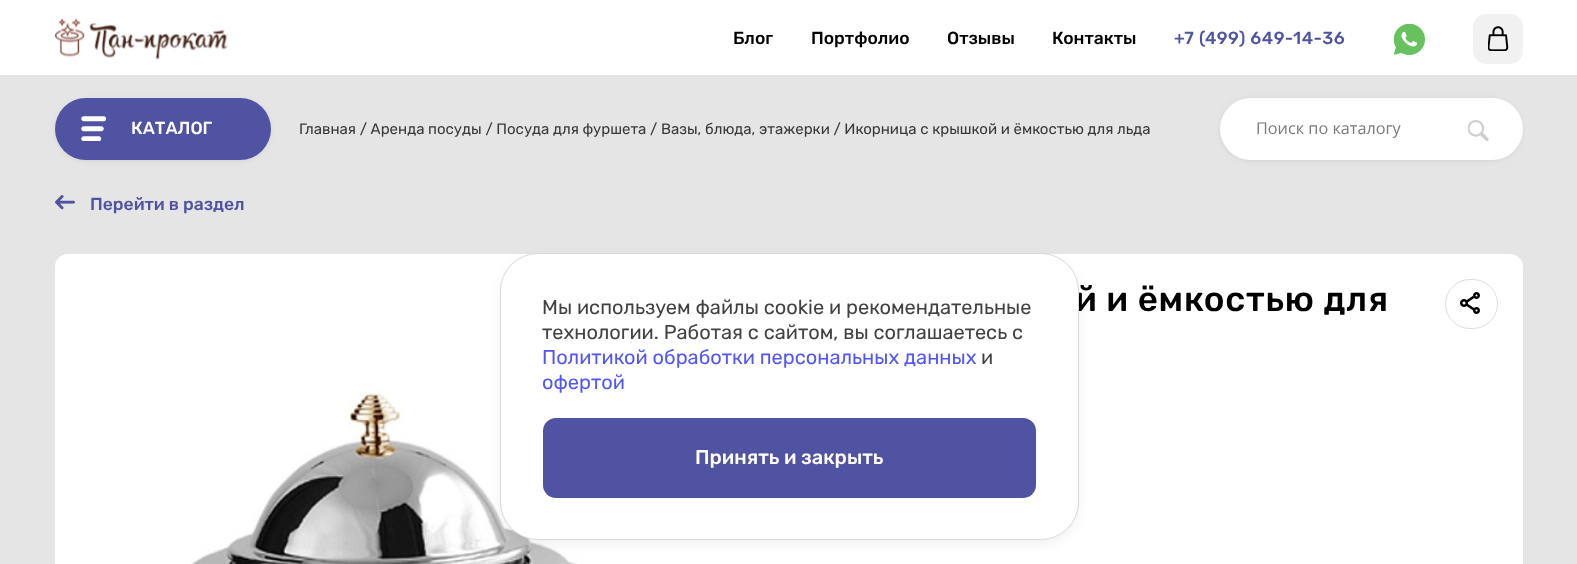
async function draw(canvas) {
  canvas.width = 1577;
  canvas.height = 564;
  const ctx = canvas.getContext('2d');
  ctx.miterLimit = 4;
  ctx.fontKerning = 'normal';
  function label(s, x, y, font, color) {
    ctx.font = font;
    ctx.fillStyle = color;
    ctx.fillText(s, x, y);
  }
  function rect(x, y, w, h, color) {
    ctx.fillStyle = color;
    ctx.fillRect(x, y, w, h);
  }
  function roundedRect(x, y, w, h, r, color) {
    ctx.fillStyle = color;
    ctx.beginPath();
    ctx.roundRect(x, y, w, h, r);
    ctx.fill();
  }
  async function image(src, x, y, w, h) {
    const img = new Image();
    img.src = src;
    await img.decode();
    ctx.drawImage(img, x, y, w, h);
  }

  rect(0, 0, 1577, 564, '#e5e5e5');
  rect(0, 0, 1577, 75, '#fff');
  await image('assets/img1.png', 55, 18, 173, 43);
  label('Блог', 733, 44, '500 17.5px Rubik', '#000');
  label('Портфолио', 811, 44, '500 17.5px Rubik', '#000');
  label('Отзывы', 947, 44, '500 17.5px Rubik', '#000');
  label('Контакты', 1052, 44, '500 17.5px Rubik', '#000');
  ctx.letterSpacing = '0.5px';
  label('+7 (499) 649-14-36', 1174, 44, '500 17.5px Rubik', '#5052a2');
  await image('assets/img2.png', 1394, 24, 31, 31);
  roundedRect(1473, 14, 50, 50, 13, '#f1f1f1');
  await image('assets/img3.png', 1488, 26, 21, 25);
  ctx.fillStyle = '#223c5099';
  ctx.filter = 'blur(5px)';
  ctx.beginPath();
  ctx.roundRect(61, 105, 204, 50, 25);
  ctx.fill();
  ctx.filter = 'none';
  roundedRect(55, 98, 216, 62, 31, '#5052a2');
  await image('assets/img4.png', 81, 116, 25, 25);
  ctx.letterSpacing = '0px';
  label('КАТАЛОГ', 131, 134, '500 17.5px Rubik', '#fff');
  ctx.fillStyle = '#223c5099';
  ctx.filter = 'blur(5px)';
  ctx.beginPath();
  ctx.roundRect(1226, 105, 290, 50, 25);
  ctx.fill();
  ctx.filter = 'none';
  roundedRect(1220, 98, 303, 62, 31, '#fff');
  label('Поиск по каталогу', 1256, 134, '16.25px Open Sans', '#7a7a7a');
  await image('assets/img5.png', 1468, 120, 21, 21);
  label('Главная / Аренда посуды / Посуда для фуршета / Вазы, блюда, этажерки / Икорница с крышкой и ёмкостью для льда', 299, 134, '15px Rubik', '#383838');
  await image('assets/img6.png', 55, 195, 20, 15);
  label('Перейти в раздел', 90, 210, '500 17.5px Rubik', '#5052a2');
  roundedRect(55, 254, 1468, 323, 13, '#fff');
  ctx.letterSpacing = '0.75px';
  label('й и ёмкостью для', 1075, 311, '500 35px Rubik', '#000');
  ctx.beginPath();
  ctx.roundRect(1445.5, 279.5, 52, 49, 24.5);
  ctx.strokeStyle = '#dedede';
  ctx.stroke();
  await image('assets/img7.png', 1460, 292, 20, 22);
  await image('assets/img8.png', 191, 386, 386, 178);
  ctx.fillStyle = '#0000000d';
  ctx.filter = 'blur(6px)';
  ctx.beginPath();
  ctx.roundRect(500, 258, 579, 287, 38);
  ctx.fill();
  ctx.filter = 'none';
  ctx.fillStyle = '#fff';
  ctx.beginPath();
  ctx.roundRect(500.5, 253.5, 578, 286, 37.5);
  ctx.fill();
  ctx.strokeStyle = '#d9d9d9';
  ctx.stroke();
  ctx.letterSpacing = '0px';
  label('Мы используем файлы cookie и рекомендательные', 542, 314, '20px Rubik', '#424242');
  label('технологии. Работая с сайтом, вы соглашаетесь с', 542, 339, '20px Rubik', '#424242');
  label('Политикой обработки персональных данных', 542, 364, '20px Rubik', '#5155fa');
  label('и', 981, 364, '20px Rubik', '#424242');
  label('офертой', 542, 389, '20px Rubik', '#5155fa');
  roundedRect(543, 418, 493, 80, 13, '#5052a2');
  label('Принять и закрыть', 695, 464, '500 20px Rubik', '#fff');
}

draw(document.querySelector('canvas'));
